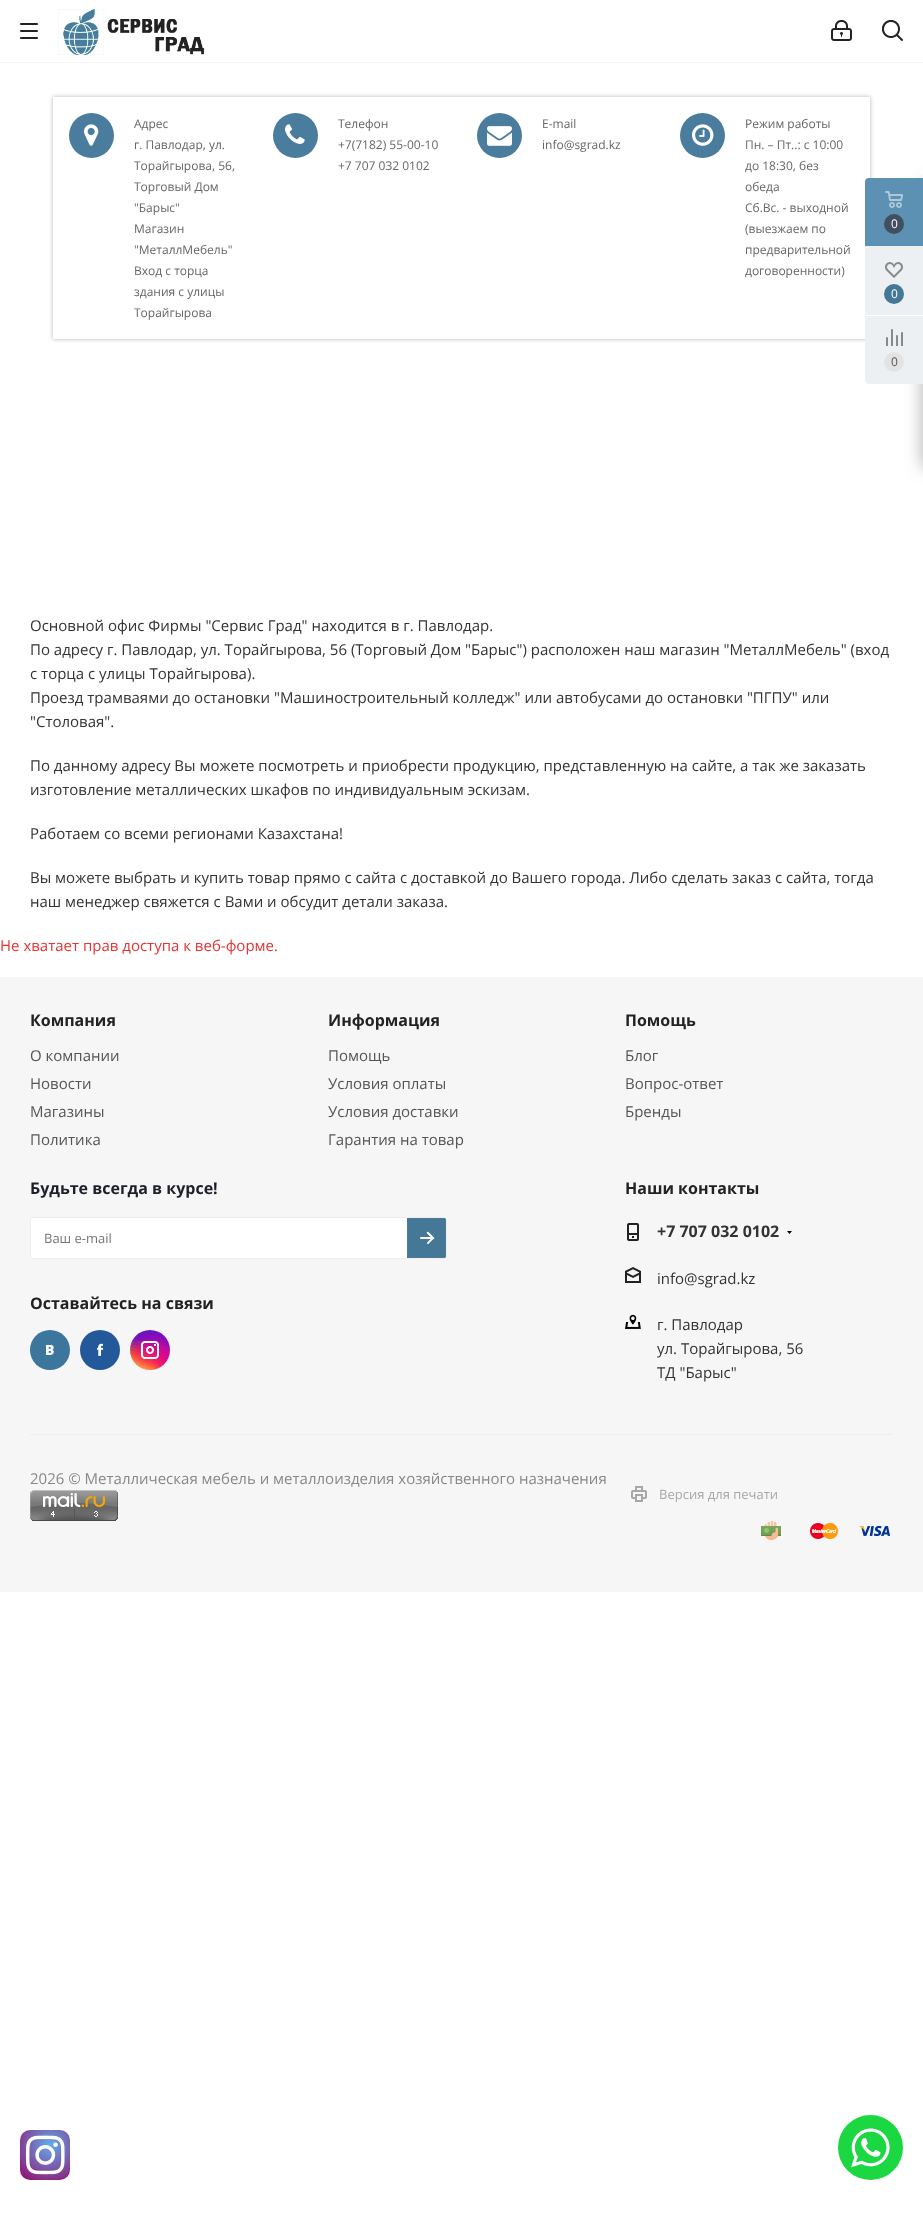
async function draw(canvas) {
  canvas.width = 923;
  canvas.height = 2215;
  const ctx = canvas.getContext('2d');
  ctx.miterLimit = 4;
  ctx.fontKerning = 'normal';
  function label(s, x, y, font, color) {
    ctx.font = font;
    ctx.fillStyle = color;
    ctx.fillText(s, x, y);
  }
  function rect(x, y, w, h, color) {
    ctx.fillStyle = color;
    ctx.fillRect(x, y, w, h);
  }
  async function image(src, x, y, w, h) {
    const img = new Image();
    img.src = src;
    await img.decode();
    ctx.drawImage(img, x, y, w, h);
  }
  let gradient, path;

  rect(0, 0, 923, 2215, '#fff');
  rect(0, 62, 923, 1, '#f5f5f5');
  await image('assets/img1.png', 20, 23, 18, 16);
  rect(58, 9, 46, 46, '#497c9d');
  await image('assets/img2.png', 58, 9, 156, 46);
  await image('assets/img3.png', 831, 20, 21, 21);
  await image('assets/img4.png', 882, 20, 21, 21);
  ctx.save();
  path = new Path2D('M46 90H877V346H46ZM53 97H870V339H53Z');
  ctx.clip(path, 'evenodd');
  ctx.fillStyle = '#0000004d';
  ctx.filter = 'blur(2px)';
  ctx.beginPath();
  ctx.rect(53, 97, 817, 242);
  ctx.fill();
  ctx.filter = 'none';
  ctx.restore();
  ctx.beginPath();
  ctx.arc(91.5, 135.5, 22.5, 0, 2 * Math.PI);
  ctx.fill();
  await image('assets/img5.png', 84, 124, 15, 22);
  label('Адрес', 134, 128, '12px Open Sans', '#666');
  label('г. Павлодар, ул.', 134, 149, '12px Open Sans', '#666');
  label('Торайгырова, 56,', 134, 170, '12px Open Sans', '#666');
  label('Торговый Дом', 134, 191, '12px Open Sans', '#666');
  label('"Барыс"', 134, 212, '12px Open Sans', '#666');
  label('Магазин', 134, 233, '12px Open Sans', '#666');
  label('"МеталлМебель"', 134, 254, '12px Open Sans', '#666');
  label('Вход с торца', 134, 275, '12px Open Sans', '#666');
  label('здания с улицы', 134, 296, '12px Open Sans', '#666');
  label('Торайгырова', 134, 317, '12px Open Sans', '#666');
  ctx.fillStyle = '#497c9d';
  ctx.beginPath();
  ctx.arc(295.5, 135.5, 22.5, 0, 2 * Math.PI);
  ctx.fill();
  await image('assets/img6.png', 285, 124, 20, 20);
  label('Телефон', 338, 128, '12px Open Sans', '#666');
  label('+7(7182) 55-00-10', 338, 149, '12px Open Sans', '#666');
  label('+7 707 032 0102', 338, 170, '12px Open Sans', '#666');
  ctx.fillStyle = '#497c9d';
  ctx.beginPath();
  ctx.arc(499.5, 135.5, 22.5, 0, 2 * Math.PI);
  ctx.fill();
  await image('assets/img7.png', 487, 126, 25, 20);
  label('E-mail', 542, 128, '12px Open Sans', '#666');
  label('info@sgrad.kz', 542, 149, '12px Open Sans', '#666');
  ctx.fillStyle = '#497c9d';
  ctx.beginPath();
  ctx.arc(702.5, 135.5, 22.5, 0, 2 * Math.PI);
  ctx.fill();
  await image('assets/img8.png', 692, 124, 22, 22);
  label('Режим работы', 745, 128, '12px Open Sans', '#666');
  label('Пн. – Пт..: с 10:00', 745, 149, '12px Open Sans', '#666');
  label('до 18:30, без', 745, 170, '12px Open Sans', '#666');
  label('обеда', 745, 191, '12px Open Sans', '#666');
  label('Сб.Вс. - выходной', 745, 212, '12px Open Sans', '#666');
  label('(выезжаем по', 745, 233, '12px Open Sans', '#666');
  label('предварительной', 745, 254, '12px Open Sans', '#666');
  label('договоренности)', 745, 275, '12px Open Sans', '#666');
  label('Основной офис Фирмы "Сервис Град" находится в г. Павлодар.', 30, 631, '15px Open Sans', '#333');
  label('По адресу г. Павлодар, ул. Торайгырова, 56 (Торговый Дом "Барыс") расположен наш магазин "МеталлМебель" (вход', 30, 655, '15px Open Sans', '#333');
  label('с торца с улицы Торайгырова).', 30, 679, '15px Open Sans', '#333');
  label('Проезд трамваями до остановки "Машиностроительный колледж" или автобусами до остановки "ПГПУ" или', 30, 703, '15px Open Sans', '#333');
  label('"Столовая".', 30, 727, '15px Open Sans', '#333');
  label('По данному адресу Вы можете посмотреть и приобрести продукцию, представленную на сайте, а так же заказать', 30, 771, '15px Open Sans', '#333');
  label('изготовление металлических шкафов по индивидуальным эскизам.', 30, 795, '15px Open Sans', '#333');
  label('Работаем со всеми регионами Казахстана!', 30, 839, '15px Open Sans', '#333');
  label('Вы можете выбрать и купить товар прямо с сайта с доставкой до Вашего города. Либо сделать заказ с сайта, тогда', 30, 883, '15px Open Sans', '#333');
  label('наш менеджер свяжется с Вами и обсудит детали заказа.', 30, 907, '15px Open Sans', '#333');
  label('Не хватает прав доступа к веб-форме.', 0, 951, '15px Open Sans', '#e83333');
  ctx.fillStyle = '#2c2c2c66';
  ctx.filter = 'blur(9px)';
  ctx.beginPath();
  ctx.roundRect(923, 184, 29, 283, 2);
  ctx.fill();
  ctx.filter = 'none';
  ctx.fillStyle = '#edf0f3';
  ctx.beginPath();
  ctx.roundRect(865, 178, 58, 206, [4, 0, 0, 4]);
  ctx.fill();
  ctx.fillStyle = '#5c91b3';
  ctx.beginPath();
  ctx.roundRect(865, 178, 58, 68, [4, 0, 0, 0]);
  ctx.fill();
  await image('assets/img9.png', 885, 191, 18, 17);
  ctx.fillStyle = '#424f60';
  ctx.beginPath();
  ctx.arc(894, 224, 10, 0, 2 * Math.PI);
  ctx.fill();
  label('0', 891, 228, '12px Open Sans', '#fff');
  await image('assets/img10.png', 885, 262, 18, 16);
  ctx.fillStyle = '#457797';
  ctx.beginPath();
  ctx.arc(894, 294, 10, 0, 2 * Math.PI);
  ctx.fill();
  label('0', 891, 298, '12px Open Sans', '#fff');
  rect(865, 315, 58, 1, '#fff');
  await image('assets/img11.png', 886, 329, 17, 17);
  ctx.fillStyle = '#e3e3e3';
  ctx.beginPath();
  ctx.arc(894, 362, 10, 0, 2 * Math.PI);
  ctx.fill();
  label('0', 891, 366, '12px Open Sans', '#555');
  rect(0, 977, 923, 615, '#f6f6f7');
  label('Компания', 30, 1026, 'bold 16px Open Sans', '#222');
  label('О компании', 30, 1061, '15px Open Sans', '#555');
  label('Новости', 30, 1089, '15px Open Sans', '#555');
  label('Магазины', 30, 1117, '15px Open Sans', '#555');
  label('Политика', 30, 1145, '15px Open Sans', '#555');
  label('Информация', 328, 1026, 'bold 16px Open Sans', '#222');
  label('Помощь', 328, 1061, '15px Open Sans', '#555');
  label('Условия оплаты', 328, 1089, '15px Open Sans', '#555');
  label('Условия доставки', 328, 1117, '15px Open Sans', '#555');
  label('Гарантия на товар', 328, 1145, '15px Open Sans', '#555');
  label('Помощь', 625, 1026, 'bold 16px Open Sans', '#222');
  label('Блог', 625, 1061, '15px Open Sans', '#555');
  label('Вопрос-ответ', 625, 1089, '15px Open Sans', '#555');
  label('Бренды', 625, 1117, '15px Open Sans', '#555');
  label('Будьте всегда в курсе!', 30, 1194, 'bold 16px Open Sans', '#1d2029');
  ctx.fillStyle = '#fff';
  ctx.beginPath();
  ctx.roundRect(30.5, 1217.5, 416, 41, 1.5);
  ctx.fill();
  ctx.strokeStyle = '#eee';
  ctx.stroke();
  label('Ваш e-mail', 44, 1243, '13px Open Sans', '#757575');
  ctx.fillStyle = '#457797';
  ctx.beginPath();
  ctx.roundRect(407, 1218, 39, 40, [0, 2, 2, 0]);
  ctx.fill();
  await image('assets/img12.png', 420, 1231, 15, 13);
  ctx.beginPath();
  ctx.roundRect(407.5, 1218.5, 38, 39, [0, 1.5, 1.5, 0]);
  ctx.strokeStyle = '#497c9d';
  ctx.stroke();
  label('Оставайтесь на связи', 30, 1309, 'bold 16px Open Sans', '#222');
  await image('assets/img13.png', 30, 1330, 40, 40);
  await image('assets/img14.png', 80, 1330, 40, 40);
  await image('assets/img15.png', 130, 1330, 40, 40);
  label('Наши контакты', 625, 1194, 'bold 16px Open Sans', '#222');
  await image('assets/img16.png', 627, 1223, 12, 18);
  label('+7 707 032 0102', 657, 1237, 'bold 16px Open Sans', '#333');
  await image('assets/img17.png', 787, 1231, 5, 3);
  await image('assets/img18.png', 625, 1267, 16, 16);
  label('info@sgrad.kz', 657, 1284, '15px Open Sans', '#333');
  await image('assets/img19.png', 625, 1314, 16, 15);
  label('г. Павлодар', 657, 1330, '15px Open Sans', '#333');
  label('ул. Торайгырова, 56', 657, 1354, '15px Open Sans', '#333');
  label('ТД "Барыс"', 657, 1378, '15px Open Sans', '#333');
  rect(30, 1434, 863, 1, '#eee');
  label('2026 © Металлическая мебель и металлоизделия хозяйственного назначения', 30, 1484, '15px Open Sans', '#888');
  await image('assets/img20.png', 30, 1490, 88, 31);
  await image('assets/img21.png', 631, 1486, 16, 16);
  label('Версия для печати', 659, 1499, '13px Open Sans', '#a7a7a7');
  await image('assets/img22.png', 761, 1521, 20, 19);
  await image('assets/img23.png', 810, 1523, 28, 17);
  await image('assets/img24.png', 859, 1525, 31, 12);
  gradient = ctx.createRadialGradient(50, 2145, 0, 50, 2145, 46);
  gradient.addColorStop(0, '#60adef');
  gradient.addColorStop(1, '#950664');
  ctx.fillStyle = gradient;
  ctx.beginPath();
  ctx.roundRect(20, 2130, 50, 50, 10);
  ctx.fill();
  await image('assets/img25.png', 26, 2135, 39, 40);
  ctx.fillStyle = '#1bd741';
  ctx.beginPath();
  ctx.arc(870.5, 2147.5, 32.5, 0, 2 * Math.PI);
  ctx.fill();
  await image('assets/img26.png', 851, 2128, 39, 40);
}

draw(document.querySelector('canvas'));
